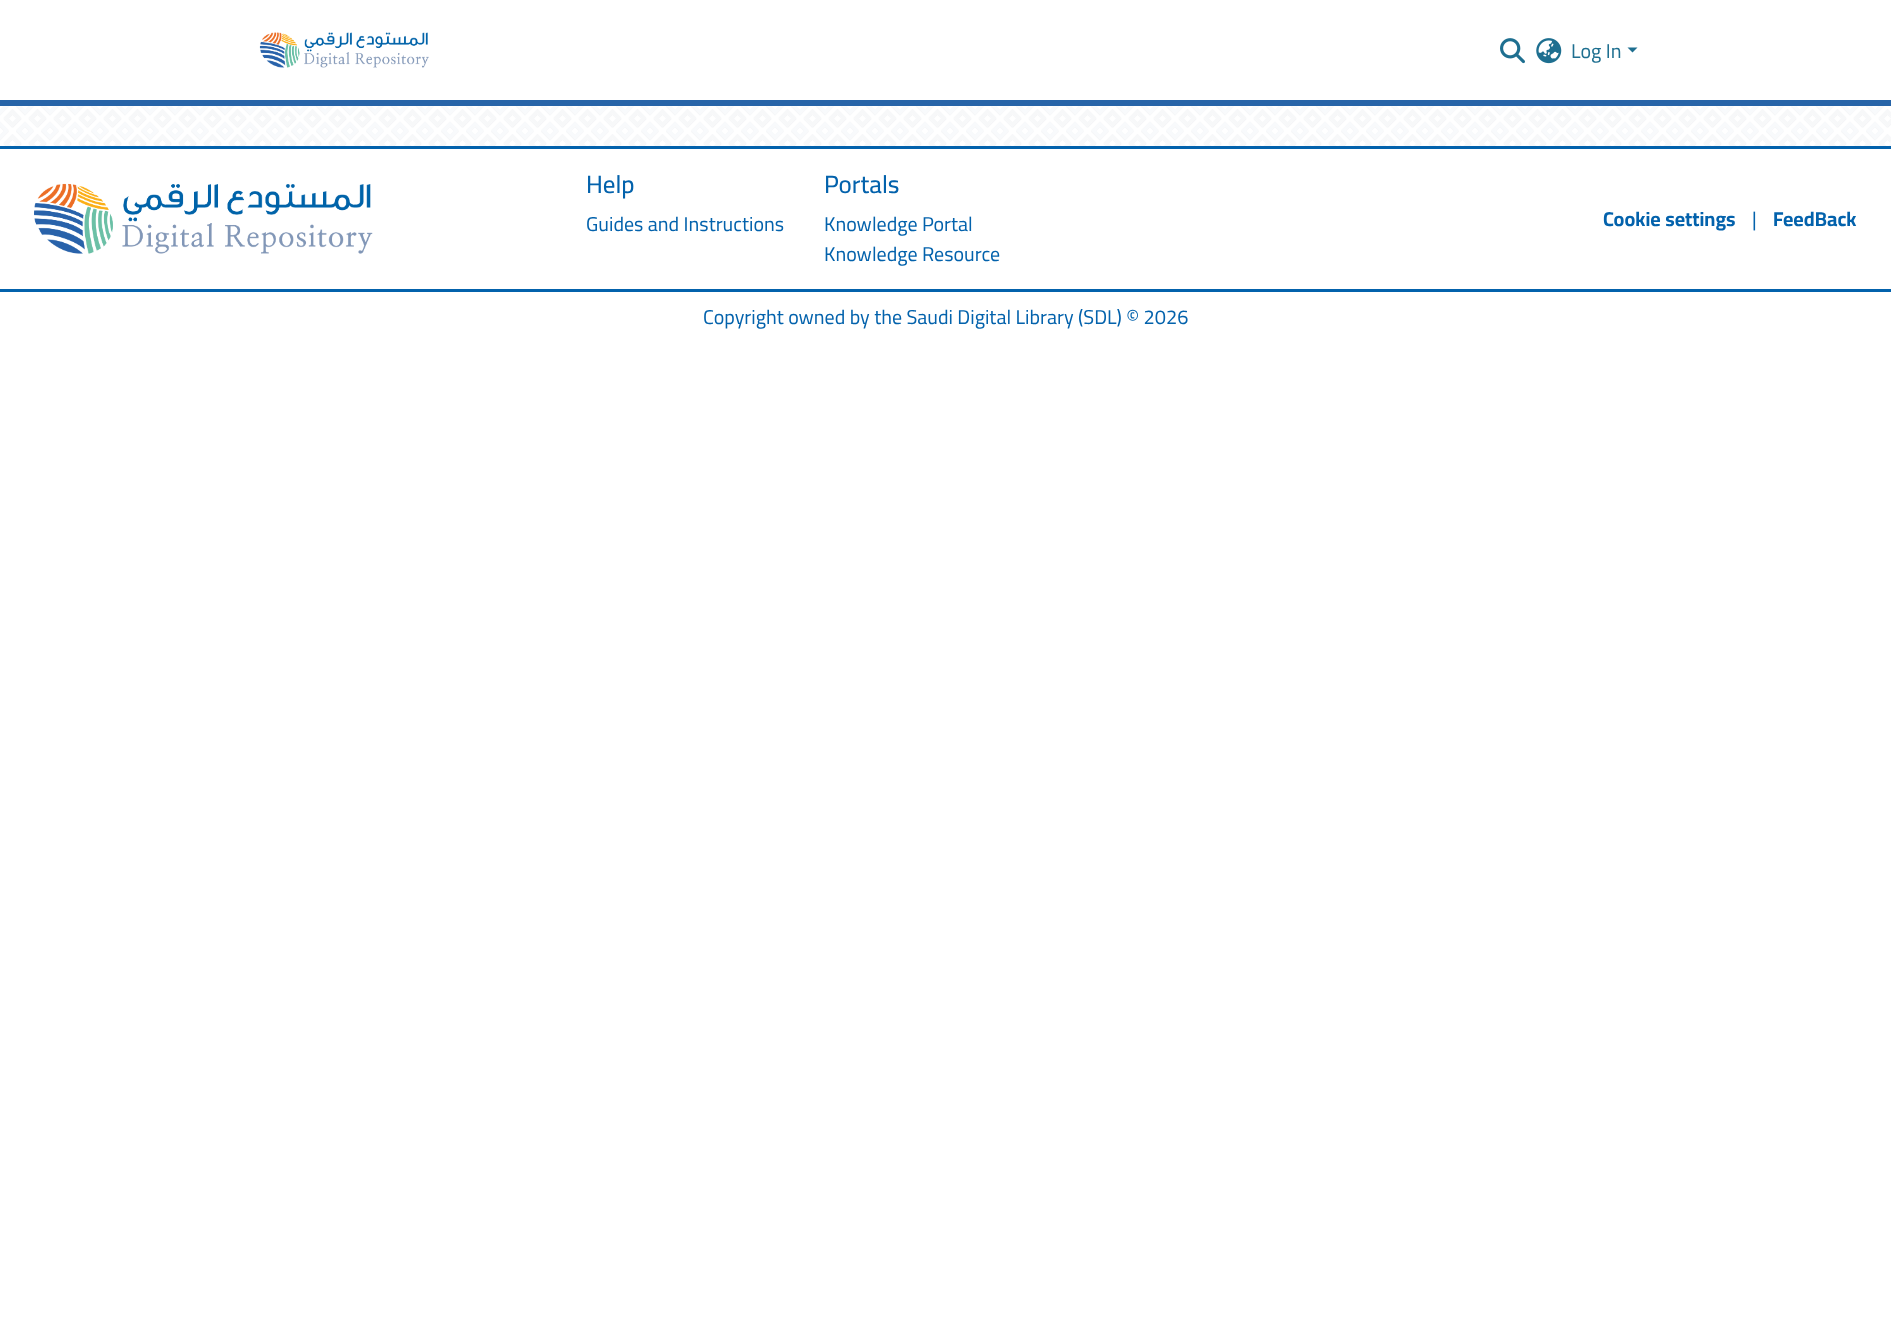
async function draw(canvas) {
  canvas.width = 1891;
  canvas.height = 1342;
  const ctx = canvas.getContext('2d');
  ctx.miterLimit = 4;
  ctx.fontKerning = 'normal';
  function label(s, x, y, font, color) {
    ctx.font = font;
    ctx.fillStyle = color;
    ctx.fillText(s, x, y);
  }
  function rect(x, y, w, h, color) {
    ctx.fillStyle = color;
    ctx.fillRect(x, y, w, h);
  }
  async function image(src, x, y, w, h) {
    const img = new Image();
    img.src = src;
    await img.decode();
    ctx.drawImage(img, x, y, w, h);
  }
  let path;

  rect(0, 0, 1891, 1342, '#fff');
  rect(0, 100, 1891, 6, '#2764a8');
  await image('assets/img1.png', 259, 32, 170, 36);
  await image('assets/img2.png', 1500, 38, 25, 26);
  await image('assets/img3.png', 1536, 38, 26, 26);
  label('Log In', 1571, 58, '20px Cairo', '#1e6f90');
  path = new Path2D('M1627.5 47.5H1637.5L1632.5 52.5Z');
  ctx.fill(path);
  await image('assets/img4.png', 0, 106, 1891, 40);
  rect(0, 146, 1891, 3, '#0362ac');
  rect(0, 289, 1891, 3, '#0362ac');
  await image('assets/img5.png', 34, 183, 339, 71);
  label('Help', 586, 193, '500 25px Cairo', '#0362ac');
  label('Guides and Instructions', 586, 231, '20px Cairo', '#0362ac');
  label('Portals', 824, 193, '500 25px Cairo', '#0362ac');
  label('Knowledge Portal', 824, 231, '20px Cairo', '#0362ac');
  label('Knowledge Resource', 824, 261, '20px Cairo', '#0362ac');
  label('Cookie settings', 1603, 226, 'bold 20px Cairo', '#0362ac');
  label('|', 1752, 226, '20px Cairo', '#0362ac');
  label('FeedBack', 1773, 226, 'bold 20px Cairo', '#0362ac');
  label('Copyright owned by the Saudi Digital Library (SDL) © 2026', 703, 324, '20px Cairo', '#0362ac');
}

draw(document.querySelector('canvas'));
